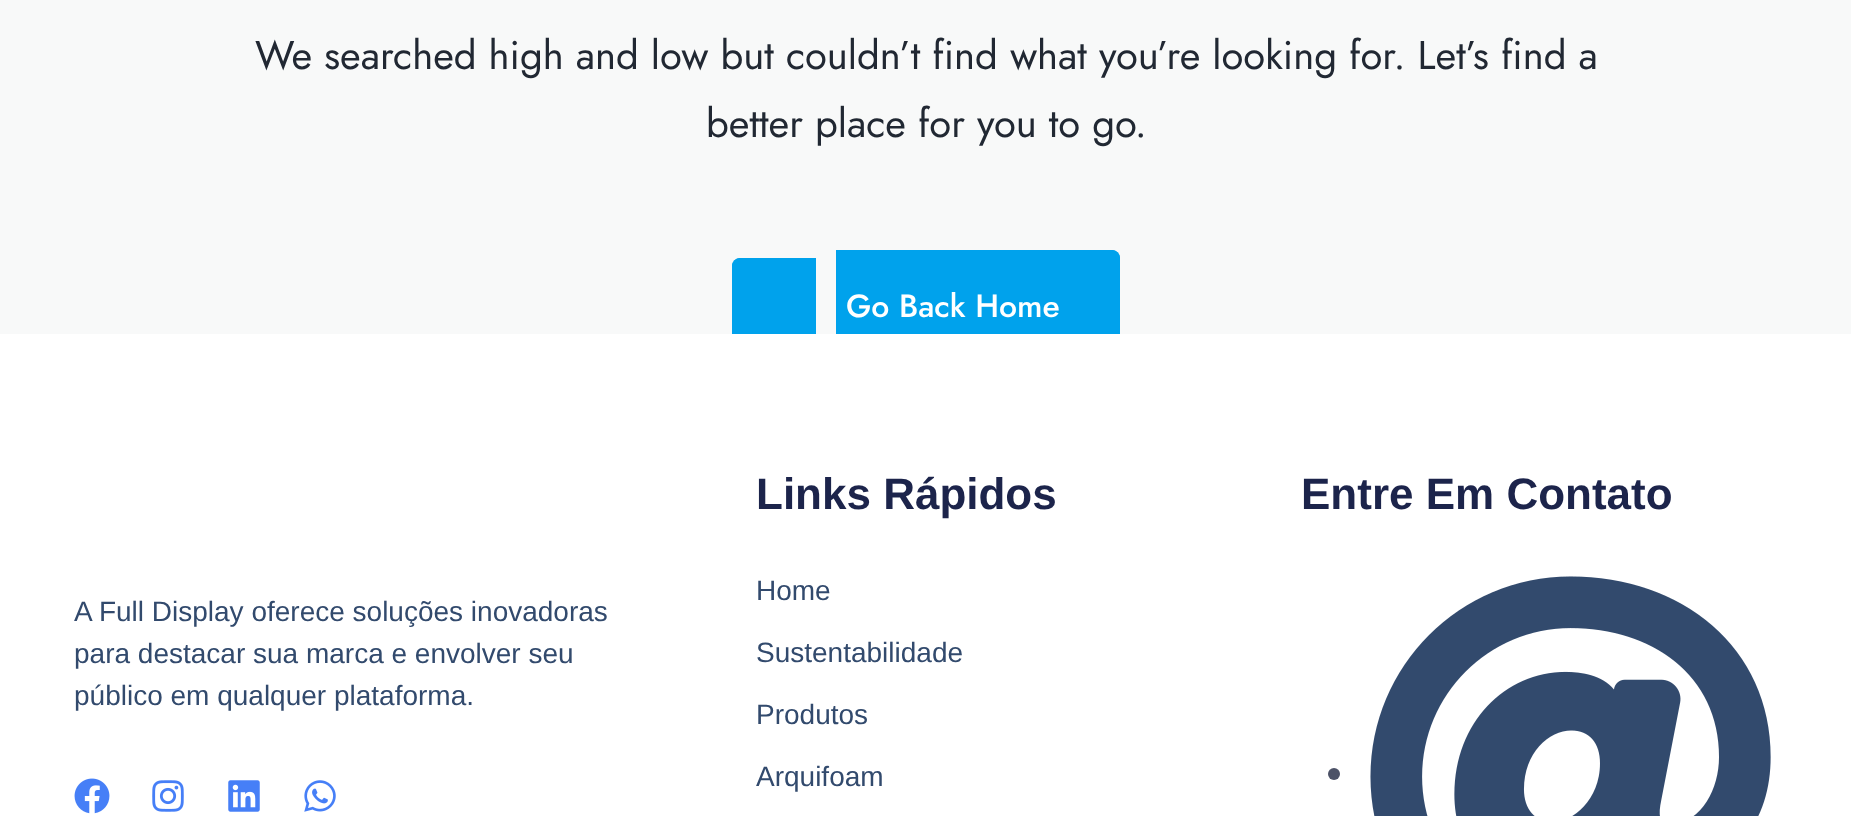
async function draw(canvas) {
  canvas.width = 1851;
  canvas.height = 816;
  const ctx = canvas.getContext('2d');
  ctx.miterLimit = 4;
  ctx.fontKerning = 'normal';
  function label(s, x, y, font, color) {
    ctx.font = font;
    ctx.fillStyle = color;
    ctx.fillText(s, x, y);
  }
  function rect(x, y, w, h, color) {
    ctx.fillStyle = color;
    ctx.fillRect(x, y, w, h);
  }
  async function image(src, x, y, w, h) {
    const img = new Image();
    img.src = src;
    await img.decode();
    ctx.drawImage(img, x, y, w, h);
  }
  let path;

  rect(0, 0, 1851, 816, '#f8f9f9');
  label('We searched high and low but couldn’t find what you’re looking for. Let’s find a', 255, 69, '40px Jost', '#212833');
  label('better place for you to go.', 706, 137, '40px Jost', '#212833');
  ctx.fillStyle = '#00a2ec';
  ctx.beginPath();
  ctx.roundRect(836, 250, 284, 110, [0, 8, 8, 0]);
  ctx.fill();
  path = new Path2D('M836 250H1112C1116 250 1120 254 1120 258V352C1120 356 1116 360 1112 360H836ZM836 254H1112C1114 254 1116 256 1116 258V352C1116 354 1114 356 1112 356H836Z');
  ctx.fill(path, 'evenodd');
  label('Go Back Home', 846, 317, '500 32px Jost', '#fff');
  ctx.fillStyle = '#00a2ec';
  ctx.beginPath();
  ctx.roundRect(732, 258, 84, 96, [8, 0, 0, 8]);
  ctx.fill();
  path = new Path2D('M740 258H816V354H740C736 354 732 350 732 346V266C732 262 736 258 740 258ZM740 262H816V350H740C738 350 736 348 736 346V266C736 264 738 262 740 262Z');
  ctx.fill(path, 'evenodd');
  rect(0, 334, 1851, 482, '#fff');
  label('Links Rápidos', 756, 509, 'bold 44px Liberation Sans', '#1c244b');
  label('Home', 756, 600, '28px Liberation Sans', '#324a6d');
  label('Sustentabilidade', 756, 662, '28px Liberation Sans', '#324a6d');
  label('Produtos', 756, 724, '28px Liberation Sans', '#324a6d');
  label('Arquifoam', 756, 786, '28px Liberation Sans', '#324a6d');
  label('Entre Em Contato', 1301, 509, 'bold 44px Liberation Sans', '#1c244b');
  ctx.fillStyle = '#4c5267';
  ctx.beginPath();
  ctx.arc(1334, 774, 6, 0, 2 * Math.PI);
  ctx.fill();
  await image('assets/img1.png', 1370, 576, 401, 240);
  label('A Full Display oferece soluções inovadoras', 74, 621, '28px Liberation Sans', '#324a6d');
  label('para destacar sua marca e envolver seu', 74, 663, '28px Liberation Sans', '#324a6d');
  label('público em qualquer plataforma.', 74, 705, '28px Liberation Sans', '#324a6d');
  await image('assets/img2.png', 74, 778, 36, 36);
  await image('assets/img3.png', 152, 780, 32, 32);
  await image('assets/img4.png', 228, 780, 32, 32);
  await image('assets/img5.png', 304, 780, 32, 32);
}

draw(document.querySelector('canvas'));
